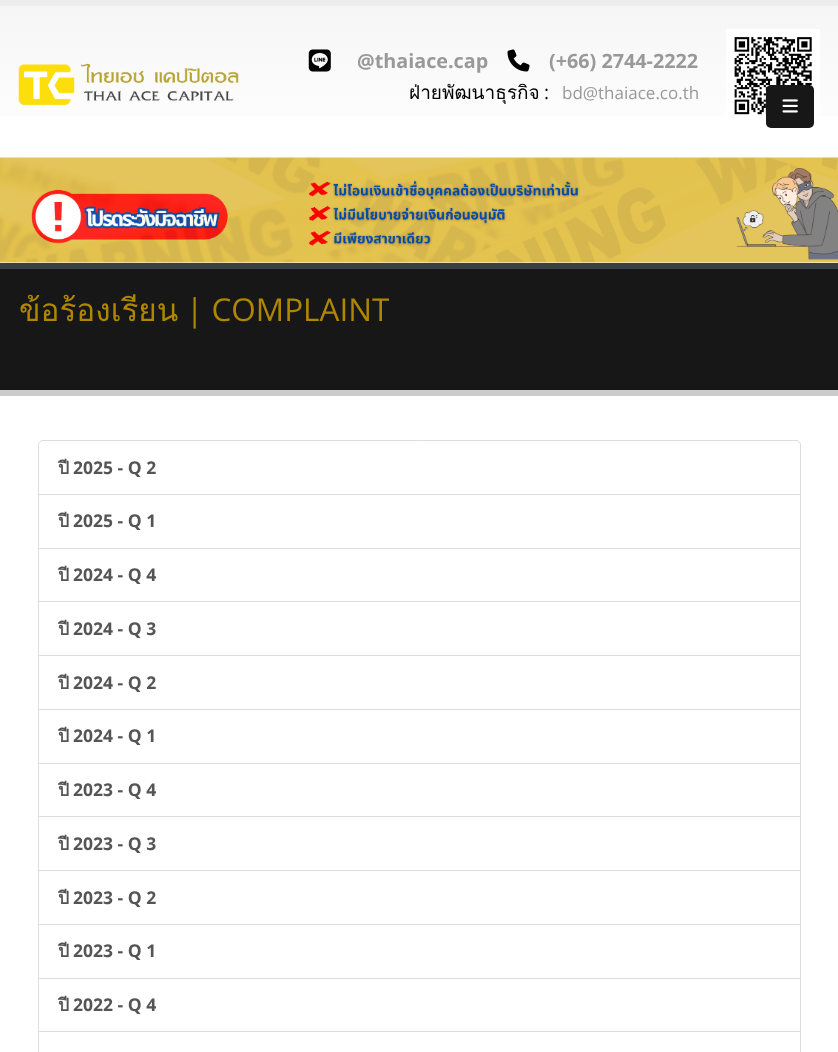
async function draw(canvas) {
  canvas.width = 838;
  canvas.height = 1052;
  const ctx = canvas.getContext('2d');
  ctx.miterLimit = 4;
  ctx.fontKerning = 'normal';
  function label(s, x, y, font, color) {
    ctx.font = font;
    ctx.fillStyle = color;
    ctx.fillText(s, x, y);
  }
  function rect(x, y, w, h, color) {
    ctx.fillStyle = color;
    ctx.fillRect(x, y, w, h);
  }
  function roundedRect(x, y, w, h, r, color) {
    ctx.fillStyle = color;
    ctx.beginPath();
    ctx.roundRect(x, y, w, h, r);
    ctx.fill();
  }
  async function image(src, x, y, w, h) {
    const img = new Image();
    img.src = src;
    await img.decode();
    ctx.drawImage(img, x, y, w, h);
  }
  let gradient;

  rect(0, 0, 838, 1052, '#fff');
  gradient = ctx.createLinearGradient(419, 6.2, 419, 158);
  gradient.addColorStop(0, '#f6f6f6');
  gradient.addColorStop(1, '#fff');
  ctx.fillStyle = gradient;
  ctx.fillRect(0, 6, 838, 110);
  rect(0, 0, 838, 6, '#ededed');
  await image('assets/img1.png', 18, 63, 221, 42);
  await image('assets/img2.png', 308, 49, 23, 23);
  label('@thaiace.cap', 357, 68, 'bold 19.75px Open Sans', '#999');
  await image('assets/img3.png', 507, 49, 23, 23);
  label('(+66) 2744-2222', 549, 68, 'bold 19.75px Open Sans', '#999');
  label('ฝ่ายพัฒนาธุรกิจ', 409, 99, '19px Loma', '#000');
  label(':', 544, 99, '19px Open Sans', '#000');
  label('bd@thaiace.co.th', 562, 99, '17px Open Sans', '#999');
  await image('assets/img4.png', 726, 29, 94, 86);
  roundedRect(766, 85, 48, 43, 5, '#171717');
  await image('assets/img5.png', 782, 99, 16, 14);
  await image('assets/img6.png', 0, 157, 838, 106);
  rect(0, 269, 838, 121, '#171717');
  rect(0, 263, 838, 6, '#384045');
  rect(0, 390, 838, 6, '#ccc');
  label('ข้อร้องเรียน', 19, 321, '31.5px Loma', '#ae8600');
  label('| COMPLAINT', 186, 321, '31.5px Open Sans', '#ae8600');
  ctx.beginPath();
  ctx.roundRect(38.5, 440.5, 762, 54, [4.5, 4.5, 0, 0]);
  ctx.strokeStyle = '#ddd';
  ctx.stroke();
  label('ปี', 58, 474, 'bold 17.5px Loma', '#555');
  label('2025 - Q 2', 73, 474, 'bold 17.5px Open Sans', '#555');
  ctx.strokeRect(38.5, 494.5, 762, 54);
  label('ปี', 58, 527, 'bold 17.5px Loma', '#555');
  label('2025 - Q 1', 73, 527, 'bold 17.5px Open Sans', '#555');
  ctx.strokeRect(38.5, 548.5, 762, 54);
  label('ปี', 58, 581, 'bold 17.5px Loma', '#555');
  label('2024 - Q 4', 73, 581, 'bold 17.5px Open Sans', '#555');
  rect(39, 602, 761, 1, '#fff');
  ctx.strokeRect(38.5, 601.5, 762, 54);
  label('ปี', 58, 635, 'bold 17.5px Loma', '#555');
  label('2024 - Q 3', 73, 635, 'bold 17.5px Open Sans', '#555');
  ctx.strokeRect(38.5, 655.5, 762, 54);
  label('ปี', 58, 689, 'bold 17.5px Loma', '#555');
  label('2024 - Q 2', 73, 689, 'bold 17.5px Open Sans', '#555');
  ctx.strokeRect(38.5, 709.5, 762, 54);
  label('ปี', 58, 742, 'bold 17.5px Loma', '#555');
  label('2024 - Q 1', 73, 742, 'bold 17.5px Open Sans', '#555');
  ctx.strokeRect(38.5, 763.5, 762, 54);
  label('ปี', 58, 796, 'bold 17.5px Loma', '#555');
  label('2023 - Q 4', 73, 796, 'bold 17.5px Open Sans', '#555');
  rect(39, 817, 761, 1, '#fff');
  ctx.strokeRect(38.5, 816.5, 762, 54);
  label('ปี', 58, 850, 'bold 17.5px Loma', '#555');
  label('2023 - Q 3', 73, 850, 'bold 17.5px Open Sans', '#555');
  ctx.strokeRect(38.5, 870.5, 762, 54);
  label('ปี', 58, 904, 'bold 17.5px Loma', '#555');
  label('2023 - Q 2', 73, 904, 'bold 17.5px Open Sans', '#555');
  ctx.strokeRect(38.5, 924.5, 762, 54);
  label('ปี', 58, 957, 'bold 17.5px Loma', '#555');
  label('2023 - Q 1', 73, 957, 'bold 17.5px Open Sans', '#555');
  ctx.strokeRect(38.5, 978.5, 762, 54);
  label('ปี', 58, 1011, 'bold 17.5px Loma', '#555');
  label('2022 - Q 4', 73, 1011, 'bold 17.5px Open Sans', '#555');
  rect(39, 1032, 761, 1, '#fff');
  ctx.strokeRect(38.5, 1031.5, 762, 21);
}

draw(document.querySelector('canvas'));
